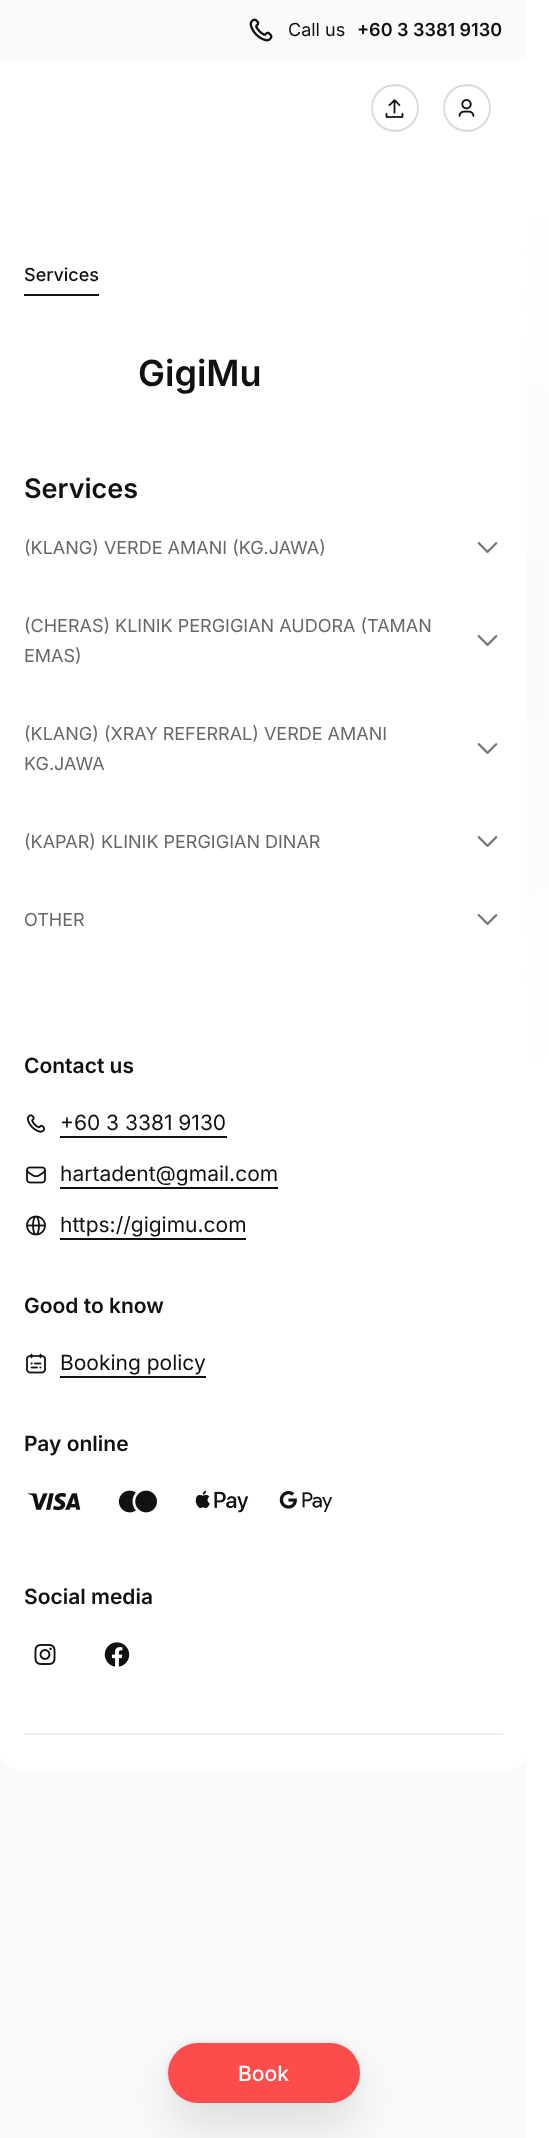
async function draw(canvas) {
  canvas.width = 549;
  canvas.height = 2138;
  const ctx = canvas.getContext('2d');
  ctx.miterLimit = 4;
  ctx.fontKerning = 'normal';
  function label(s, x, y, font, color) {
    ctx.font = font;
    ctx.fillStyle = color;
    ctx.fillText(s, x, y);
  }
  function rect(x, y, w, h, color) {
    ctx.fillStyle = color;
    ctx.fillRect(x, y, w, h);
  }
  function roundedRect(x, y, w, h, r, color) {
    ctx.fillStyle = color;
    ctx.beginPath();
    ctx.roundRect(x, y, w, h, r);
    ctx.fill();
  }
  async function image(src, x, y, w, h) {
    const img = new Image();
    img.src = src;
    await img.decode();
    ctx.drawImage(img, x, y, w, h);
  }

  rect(0, 0, 549, 2138, '#fff');
  rect(0, 0, 527, 2138, '#fafafa');
  ctx.fillStyle = '#3f44470f';
  ctx.filter = 'blur(120px)';
  ctx.beginPath();
  ctx.roundRect(0, 386, 527, 505, 18);
  ctx.fill();
  ctx.filter = 'none';
  await image('assets/img1.png', 249, 18, 24, 24);
  label('Call us', 288, 36, '18px Inter', '#111');
  label('+60 3 3381 9130', 357, 36, '600 18px Inter', '#111');
  rect(0, 60, 527, 176, '#fff');
  ctx.beginPath();
  ctx.arc(395, 108, 23, 0, 2 * Math.PI);
  ctx.strokeStyle = '#dbdbdb';
  ctx.lineWidth = 2;
  ctx.stroke();
  await image('assets/img2.png', 385, 99, 19, 19);
  ctx.beginPath();
  ctx.arc(467, 108, 23, 0, 2 * Math.PI);
  ctx.stroke();
  await image('assets/img3.png', 458, 99, 17, 18);
  roundedRect(0, 236, 527, 1533, 18, '#fff');
  rect(0, 236, 527, 14, '#fff');
  label('Services', 24, 281, '500 18px Inter', '#111');
  rect(24, 294, 75, 2, '#111');
  label('GigiMu', 138, 386, '600 36px Inter', '#111');
  label('Services', 24, 498, '600 27px Inter', '#111');
  label('(KLANG) VERDE AMANI (KG.JAWA)', 24, 554, '18px Inter', '#676767');
  await image('assets/img4.png', 477, 542, 21, 11);
  label('(CHERAS) KLINIK PERGIGIAN AUDORA (TAMAN', 24, 632, '18px Inter', '#676767');
  label('EMAS)', 24, 662, '18px Inter', '#676767');
  await image('assets/img4.png', 477, 635, 21, 11);
  label('(KLANG) (XRAY REFERRAL) VERDE AMANI', 24, 740, '18px Inter', '#676767');
  label('KG.JAWA', 24, 770, '18px Inter', '#676767');
  await image('assets/img4.png', 477, 743, 21, 11);
  label('(KAPAR) KLINIK PERGIGIAN DINAR', 24, 848, '18px Inter', '#676767');
  await image('assets/img4.png', 477, 836, 21, 11);
  label('OTHER', 24, 926, '18px Inter', '#676767');
  await image('assets/img4.png', 477, 914, 21, 11);
  label('Contact us', 24, 1073, '600 21px Inter', '#111');
  await image('assets/img5.png', 26, 1114, 20, 19);
  label('+60 3 3381 9130', 60, 1130, '21px Inter', '#111');
  rect(60, 1136, 167, 2, '#111');
  await image('assets/img6.png', 26, 1166, 20, 18);
  label('hartadent@gmail.com', 60, 1181, '21px Inter', '#111');
  rect(60, 1187, 218, 2, '#111');
  await image('assets/img7.png', 26, 1215, 20, 21);
  label('https://gigimu.com', 60, 1232, '21px Inter', '#111');
  rect(60, 1238, 186, 2, '#111');
  label('Good to know', 24, 1313, '600 21px Inter', '#111');
  await image('assets/img8.png', 26, 1353, 20, 21);
  label('Booking policy', 60, 1370, '21px Inter', '#111');
  rect(60, 1376, 146, 2, '#111');
  label('Pay online', 24, 1451, '600 21px Inter', '#111');
  await image('assets/img9.png', 27, 1493, 54, 18);
  await image('assets/img10.png', 118, 1490, 39, 23);
  await image('assets/img11.png', 195, 1490, 54, 23);
  await image('assets/img12.png', 279, 1491, 54, 21);
  label('Social media', 24, 1604, '600 21px Inter', '#111');
  await image('assets/img13.png', 34, 1644, 22, 21);
  await image('assets/img14.png', 104, 1642, 26, 25);
  rect(24, 1733, 479, 2, '#f0f0f0');
  ctx.fillStyle = '#58687433';
  ctx.filter = 'blur(24px)';
  ctx.beginPath();
  ctx.roundRect(168, 2067, 192, 60, 30);
  ctx.fill();
  ctx.filter = 'none';
  ctx.fillStyle = '#5868741f';
  ctx.filter = 'blur(3px)';
  ctx.beginPath();
  ctx.roundRect(168, 2042, 192, 60, 30);
  ctx.fill();
  ctx.filter = 'none';
  roundedRect(168, 2043, 192, 60, 30, '#fc4c4c');
  label('Book', 238, 2081, '500 21px Inter', '#fff');
}

draw(document.querySelector('canvas'));
